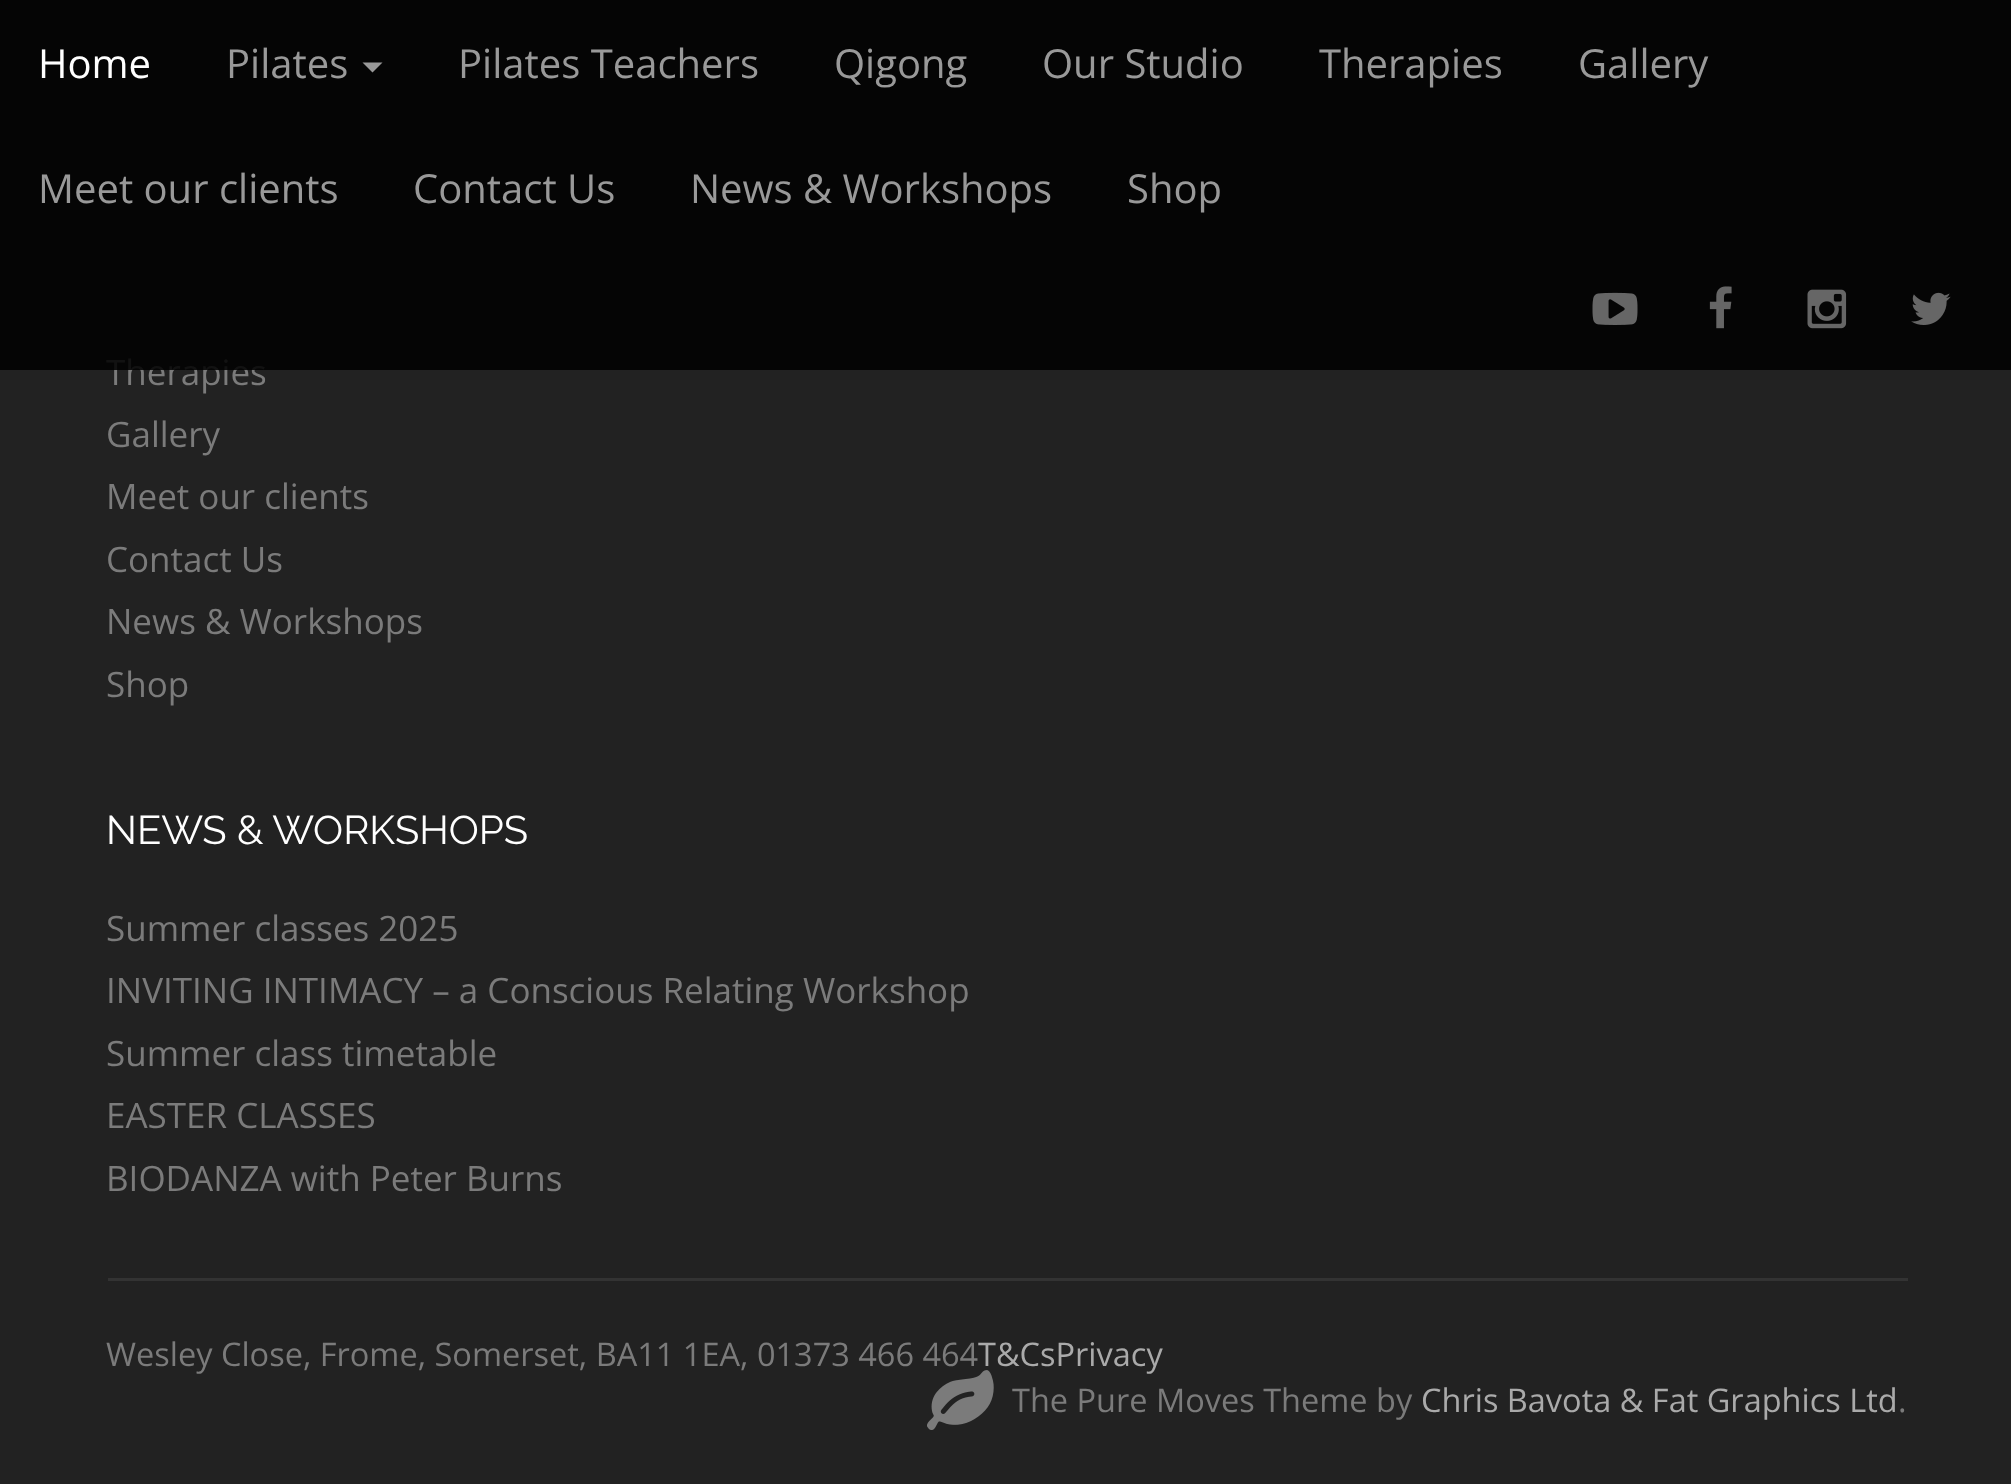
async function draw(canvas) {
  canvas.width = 2011;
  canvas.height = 1484;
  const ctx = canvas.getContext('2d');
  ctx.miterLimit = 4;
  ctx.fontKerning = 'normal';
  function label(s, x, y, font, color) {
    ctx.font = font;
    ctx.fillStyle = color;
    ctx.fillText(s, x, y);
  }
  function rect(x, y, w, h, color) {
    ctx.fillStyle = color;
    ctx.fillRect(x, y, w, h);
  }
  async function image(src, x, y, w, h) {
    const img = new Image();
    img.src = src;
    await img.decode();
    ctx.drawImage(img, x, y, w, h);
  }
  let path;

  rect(0, 0, 2011, 1484, '#222');
  label('Therapies', 106, 385, '35px Open Sans', '#7b7b7b');
  rect(0, 0, 2011, 370, '#000000d9');
  label('Home', 38, 78, '40px Open Sans', '#fff');
  label('Pilates', 226, 78, '40px Open Sans', '#999');
  path = new Path2D('M362.5 62.5H382.5L372.5 72.5Z');
  ctx.fill(path);
  label('Pilates Teachers', 458, 78, '40px Open Sans', '#999');
  label('Qigong', 834, 78, '40px Open Sans', '#999');
  label('Our Studio', 1042, 78, '40px Open Sans', '#999');
  label('Therapies', 1319, 78, '40px Open Sans', '#999');
  label('Gallery', 1578, 78, '40px Open Sans', '#999');
  label('Meet our clients', 38, 203, '40px Open Sans', '#999');
  label('Contact Us', 413, 203, '40px Open Sans', '#999');
  label('News & Workshops', 690, 203, '40px Open Sans', '#999');
  label('Shop', 1127, 203, '40px Open Sans', '#999');
  await image('assets/img1.png', 1592, 292, 46, 33);
  await image('assets/img2.png', 1709, 286, 23, 43);
  await image('assets/img3.png', 1807, 289, 40, 40);
  await image('assets/img4.png', 1911, 292, 40, 33);
  label('Gallery', 106, 447, '35px Open Sans', '#7b7b7b');
  label('Meet our clients', 106, 509, '35px Open Sans', '#7b7b7b');
  label('Contact Us', 106, 572, '35px Open Sans', '#7b7b7b');
  label('News & Workshops', 106, 634, '35px Open Sans', '#7b7b7b');
  label('Shop', 106, 697, '35px Open Sans', '#7b7b7b');
  label('NEWS & WORKSHOPS', 106, 844, '100 40px Raleway', '#fff');
  label('Summer classes 2025', 106, 941, '35px Open Sans', '#7b7b7b');
  label('INVITING INTIMACY – a Conscious Relating Workshop', 106, 1003, '35px Open Sans', '#7b7b7b');
  label('Summer class timetable', 106, 1066, '35px Open Sans', '#7b7b7b');
  label('EASTER CLASSES', 106, 1128, '35px Open Sans', '#7b7b7b');
  label('BIODANZA with Peter Burns', 106, 1191, '35px Open Sans', '#7b7b7b');
  rect(108, 1278, 1800, 3, '#333');
  label('Wesley Close, Frome, Somerset, BA11 1EA, 01373 466 464', 106, 1366, '32.5px Open Sans', '#7b7b7b');
  label('T&CsPrivacy', 978, 1366, '32.5px Open Sans', '#aaa');
  await image('assets/img5.png', 927, 1370, 67, 60);
  label('The Pure Moves Theme by', 1012, 1412, '32.5px Open Sans', '#7b7b7b');
  label('Chris Bavota & Fat Graphics Ltd', 1421, 1412, '32.5px Open Sans', '#aaa');
  label('.', 1898, 1412, '32.5px Open Sans', '#7b7b7b');
}

draw(document.querySelector('canvas'));
